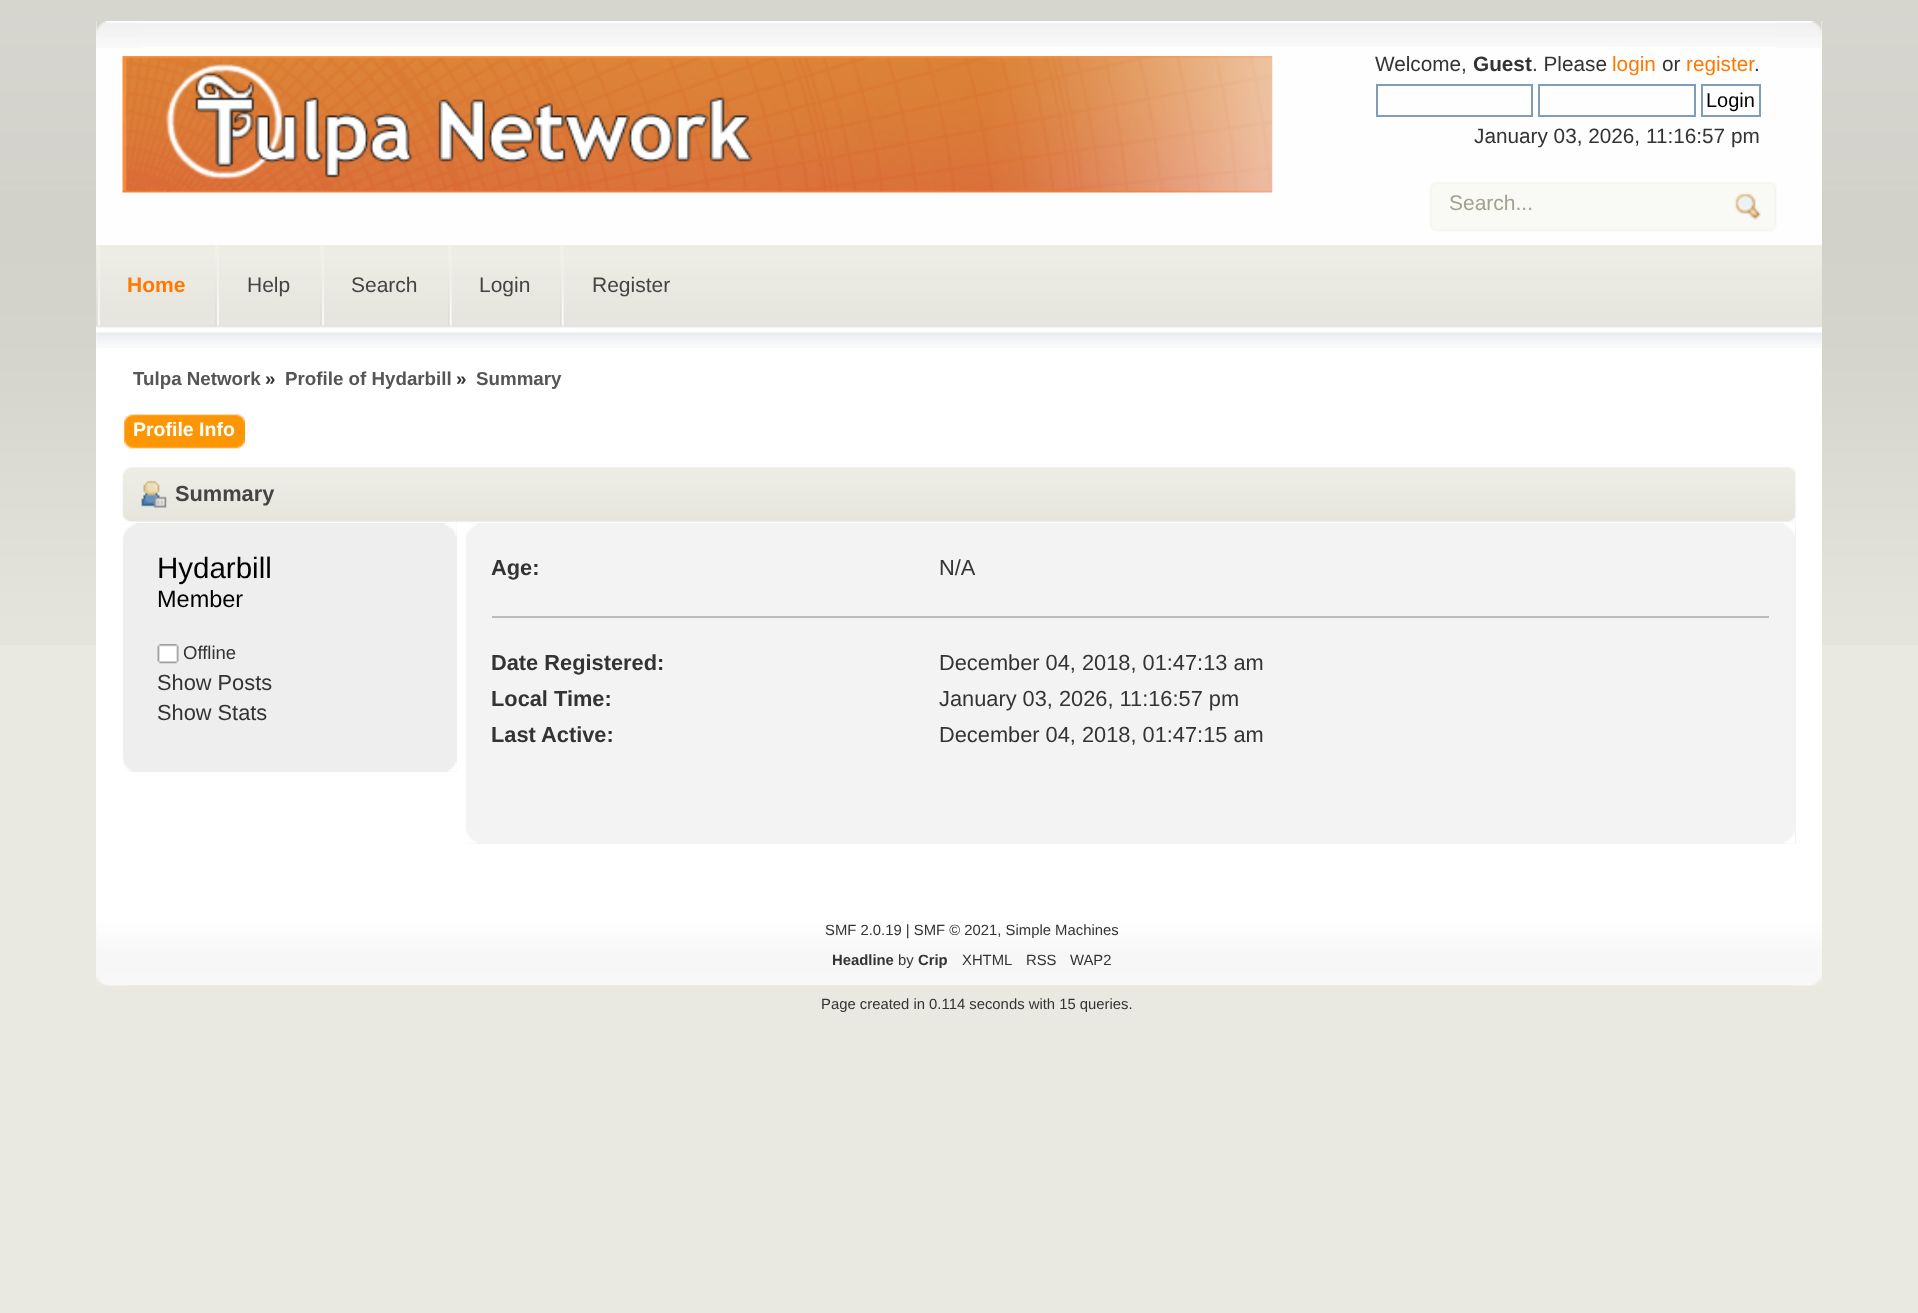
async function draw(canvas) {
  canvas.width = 1918;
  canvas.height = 1313;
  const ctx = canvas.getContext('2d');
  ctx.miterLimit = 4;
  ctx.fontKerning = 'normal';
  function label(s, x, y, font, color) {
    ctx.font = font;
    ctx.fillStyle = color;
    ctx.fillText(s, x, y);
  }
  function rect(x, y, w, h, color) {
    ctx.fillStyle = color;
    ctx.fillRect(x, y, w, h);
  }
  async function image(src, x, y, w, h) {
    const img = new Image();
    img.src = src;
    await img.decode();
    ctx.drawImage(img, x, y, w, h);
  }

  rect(0, 0, 1918, 1313, '#eae9e1');
  await image('assets/img1.png', 0, 0, 1918, 645);
  rect(96, 21, 1726, 224, '#fefefe');
  await image('assets/img2.png', 96, 23, 1726, 24);
  await image('assets/img3.png', 96, 21, 46, 27);
  await image('assets/img4.png', 122, 56, 1151, 137);
  await image('assets/img5.png', 1776, 21, 46, 27);
  label('Welcome,', 1375, 71, '20.75px Liberation Sans', '#333');
  label('Guest', 1473, 71, 'bold 20.75px Liberation Sans', '#333');
  label('. Please', 1532, 71, '20.75px Liberation Sans', '#333');
  label('login', 1612, 71, '20.75px Liberation Sans', '#ff7800');
  label('or', 1662, 71, '20.75px Liberation Sans', '#333');
  label('register', 1686, 71, '20.75px Liberation Sans', '#ff7800');
  label('.', 1754, 71, '20.75px Liberation Sans', '#333');
  ctx.strokeStyle = '#7f9db9';
  ctx.lineWidth = 2;
  ctx.strokeRect(1377, 85, 155, 31);
  ctx.strokeRect(1539, 85, 156, 31);
  ctx.strokeRect(1702, 85, 58, 31);
  label('Login', 1706, 107, '20px Liberation Sans', '#000');
  label('January 03, 2026, 11:16:57 pm', 1474, 143, '20.75px Liberation Sans', '#333');
  await image('assets/img6.png', 1429, 182, 348, 50);
  label('Search...', 1449, 210, '21px Liberation Sans', '#a3a192');
  await image('assets/img7.png', 96, 245, 1726, 81);
  await image('assets/img8.png', 96, 245, 1726, 81);
  rect(96, 326, 1726, 581, '#fff');
  await image('assets/img13.png', 96, 325, 1726, 23);
  await image('assets/img9.png', 96, 245, 4, 81);
  await image('assets/img10.png', 99, 297, 1, 28);
  label('Home', 127, 292, 'bold 21px Liberation Sans', '#ff7800');
  await image('assets/img11.png', 215, 245, 4, 81);
  label('Help', 247, 292, '21px Liberation Sans', '#444');
  await image('assets/img11.png', 320, 245, 4, 81);
  label('Search', 351, 292, '21px Liberation Sans', '#444');
  await image('assets/img12.png', 448, 245, 4, 81);
  label('Login', 479, 292, '21px Liberation Sans', '#444');
  await image('assets/img12.png', 560, 245, 4, 81);
  label('Register', 592, 292, '21px Liberation Sans', '#444');
  label('Tulpa Network', 133, 385, 'bold 18.75px Liberation Sans', '#555');
  label('»', 265, 385, 'bold 18.75px Liberation Sans', '#333');
  label('Profile of Hydarbill', 285, 385, 'bold 18.75px Liberation Sans', '#555');
  label('»', 456, 385, 'bold 18.75px Liberation Sans', '#333');
  label('Summary', 476, 385, 'bold 18.75px Liberation Sans', '#555');
  await image('assets/img14.png', 236, 414, 9, 35);
  await image('assets/img15.png', 124, 414, 113, 35);
  label('Profile Info', 133, 436, 'bold 19.5px Liberation Sans', '#fff');
  await image('assets/img16.png', 122, 467, 1674, 55);
  await image('assets/img17.png', 138, 467, 1658, 55);
  await image('assets/img18.png', 141, 480, 26, 28);
  label('Summary', 175, 501, 'bold 21.8px Liberation Sans', '#444');
  rect(123, 523, 334, 249, '#efeeee');
  await image('assets/img19.png', 122, 523, 14, 19);
  await image('assets/img20.png', 444, 523, 13, 13);
  label('Hydarbill', 157, 578, '29.5px Liberation Sans', '#000');
  label('Member', 157, 607, '23.5px Liberation Sans', '#000');
  await image('assets/img21.png', 157, 644, 22, 20);
  label('Offline', 183, 659, '18.5px Liberation Sans', '#333');
  label('Show Posts', 157, 690, '21.8px Liberation Sans', '#333');
  label('Show Stats', 157, 720, '21.8px Liberation Sans', '#333');
  await image('assets/img22.png', 122, 753, 10, 19);
  await image('assets/img23.png', 448, 761, 9, 11);
  rect(466, 523, 1330, 321, '#f3f3f3');
  await image('assets/img24.png', 465, 523, 13, 19);
  await image('assets/img25.png', 1783, 523, 12, 13);
  rect(492, 616, 1277, 2, '#bbb');
  label('Age:', 491, 575, 'bold 21.8px Liberation Sans', '#333');
  label('N/A', 939, 575, '21.8px Liberation Sans', '#333');
  label('Date Registered:', 491, 670, 'bold 21.8px Liberation Sans', '#333');
  label('December 04, 2018, 01:47:13 am', 939, 670, '21.8px Liberation Sans', '#333');
  label('Local Time:', 491, 706, 'bold 21.8px Liberation Sans', '#333');
  label('January 03, 2026, 11:16:57 pm', 939, 706, '21.8px Liberation Sans', '#333');
  label('Last Active:', 491, 742, 'bold 21.8px Liberation Sans', '#333');
  label('December 04, 2018, 01:47:15 am', 939, 742, '21.8px Liberation Sans', '#333');
  await image('assets/img26.png', 465, 824, 13, 20);
  await image('assets/img27.png', 1783, 831, 12, 13);
  await image('assets/img28.png', 96, 907, 1726, 79);
  await image('assets/img29.png', 96, 907, 31, 79);
  await image('assets/img30.png', 1791, 907, 31, 79);
  label('SMF 2.0.19 | SMF © 2021, Simple Machines', 825, 935, '14.85px Liberation Sans', '#333');
  label('Headline', 832, 965, 'bold 14.85px Liberation Sans', '#333');
  label('by', 898, 965, '14.85px Liberation Sans', '#333');
  label('Crip', 918, 965, 'bold 14.85px Liberation Sans', '#333');
  label('XHTML', 962, 965, '14.85px Liberation Sans', '#333');
  label('RSS', 1026, 965, '14.85px Liberation Sans', '#333');
  label('WAP2', 1070, 965, '14.85px Liberation Sans', '#333');
  label('Page created in 0.114 seconds with 15 queries.', 821, 1009, '14.85px Liberation Sans', '#333');
}

draw(document.querySelector('canvas'));
